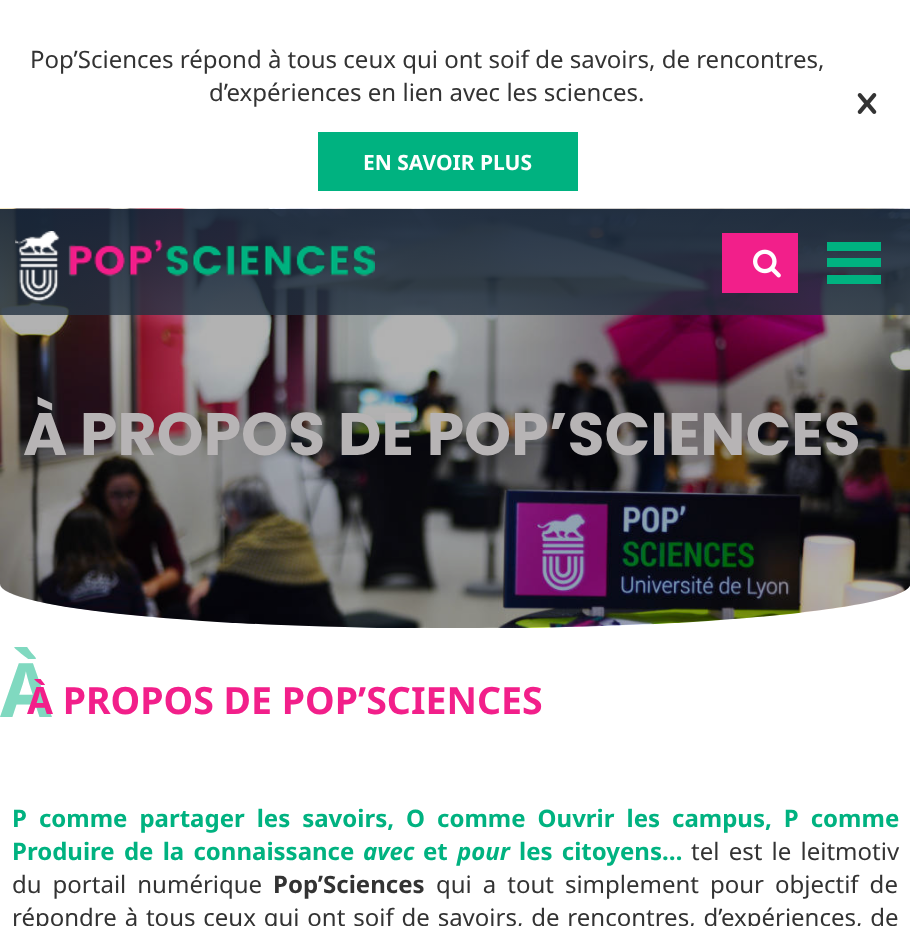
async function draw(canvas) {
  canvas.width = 910;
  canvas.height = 926;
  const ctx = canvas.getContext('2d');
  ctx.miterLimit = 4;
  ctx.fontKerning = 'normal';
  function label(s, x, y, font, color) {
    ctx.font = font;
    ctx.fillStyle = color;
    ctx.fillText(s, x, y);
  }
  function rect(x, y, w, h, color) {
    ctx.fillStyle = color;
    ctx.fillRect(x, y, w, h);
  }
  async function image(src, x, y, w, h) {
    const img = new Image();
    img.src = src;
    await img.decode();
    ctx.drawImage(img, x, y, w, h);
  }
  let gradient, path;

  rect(0, 0, 910, 926, '#fff');
  label('Pop’Sciences répond à tous ceux qui ont soif de savoirs, de rencontres,', 30, 68, '24px Noto Sans', '#333');
  label('d’expériences en lien avec les sciences.', 209, 101, '24px Noto Sans', '#333');
  await image('assets/img1.png', 857, 93, 20, 21);
  rect(318, 132, 260, 59, '#00b280');
  label('EN SAVOIR PLUS', 363, 170, 'bold 21px Noto Sans', '#fff');
  await image('assets/img4.png', 0, 208, 910, 420);
  ctx.fillStyle = '#0000004d';
  path = new Path2D('M0 209V584C0 608 204 628 455 628C707 628 910 608 910 584V209Z');
  ctx.fill(path);
  gradient = ctx.createLinearGradient(455, 208, 455, 315);
  gradient.addColorStop(0, '#19283ce6');
  gradient.addColorStop(1, '#233140cc');
  ctx.fillStyle = gradient;
  ctx.fillRect(0, 209, 910, 106);
  await image('assets/img2.png', 15, 231, 360, 71);
  rect(722, 233, 76, 60, '#f21f8a');
  await image('assets/img3.png', 753, 249, 28, 29);
  rect(827, 258, 54, 9, '#00b280');
  rect(827, 242, 54, 9, '#00b280');
  rect(827, 275, 54, 9, '#00b280');
  label('À PROPOS DE POP’SCIENCES', 23, 455, 'bold 60px Poppins', '#b7b4b5');
  label('À', 0, 717, 'bold 75px Noto Sans', '#80d9c0');
  label('À PROPOS DE POP’SCIENCES', 27, 714, 'bold 37.5px Noto Sans', '#f21f8a');
  ctx.wordSpacing = '5.75px';
  label('P comme partager les savoirs, O comme Ouvrir les campus, P comme', 12, 827, 'bold 24px Noto Sans', '#00b280');
  ctx.wordSpacing = '3px';
  label('Produire de la connaissance', 12, 860, 'bold 24px Noto Sans', '#00b280');
  ctx.wordSpacing = '0px';
  label('avec', 363, 860, 'italic bold 24px Noto Sans', '#00b280');
  label('et', 423, 860, 'bold 24px Noto Sans', '#00b280');
  label('pour', 457, 860, 'italic bold 24px Noto Sans', '#00b280');
  ctx.wordSpacing = '3px';
  label('les citoyens…', 519, 860, 'bold 24px Noto Sans', '#00b280');
  label('tel est le leitmotiv', 691, 860, '24px Noto Sans', '#333');
  ctx.wordSpacing = '4.75px';
  label('du portail numérique', 12, 893, '24px Noto Sans', '#333');
  ctx.wordSpacing = '0px';
  label('Pop’Sciences', 273, 893, 'bold 24px Noto Sans', '#333');
  ctx.wordSpacing = '4.75px';
  label('qui a tout simplement pour objectif de', 436, 893, '24px Noto Sans', '#333');
  ctx.wordSpacing = '1.6px';
  label('répondre à tous ceux qui ont soif de savoirs, de rencontres, d’expériences, de', 12, 926, '24px Noto Sans', '#333');
}

draw(document.querySelector('canvas'));
